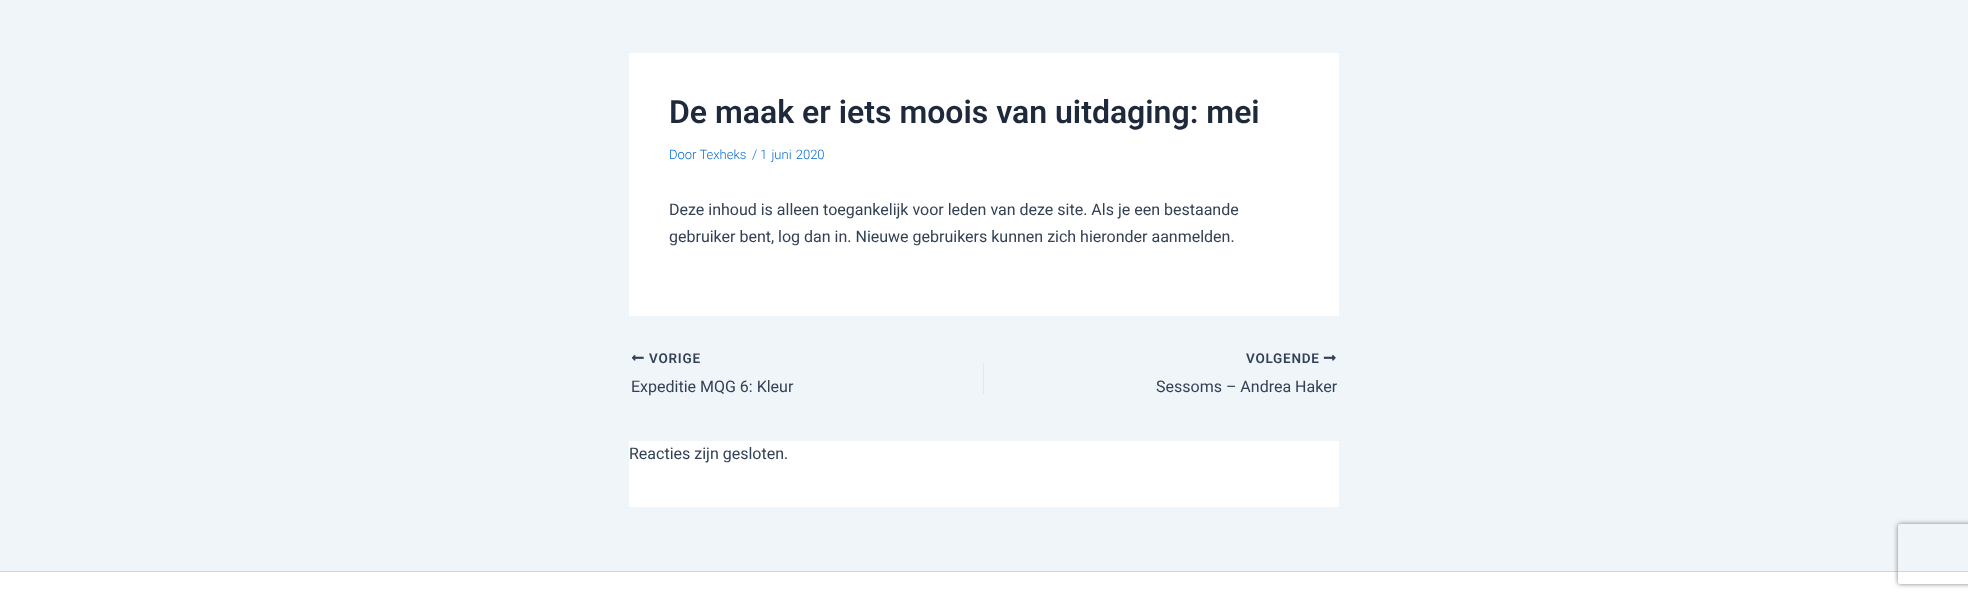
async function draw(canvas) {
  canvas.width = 1968;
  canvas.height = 598;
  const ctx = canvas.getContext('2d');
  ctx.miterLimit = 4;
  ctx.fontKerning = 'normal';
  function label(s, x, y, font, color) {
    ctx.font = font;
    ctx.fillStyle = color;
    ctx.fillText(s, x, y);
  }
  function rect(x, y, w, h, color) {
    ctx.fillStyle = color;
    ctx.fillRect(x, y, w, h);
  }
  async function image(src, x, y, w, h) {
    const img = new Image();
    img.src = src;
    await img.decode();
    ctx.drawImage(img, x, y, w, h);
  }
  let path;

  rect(0, 0, 1968, 598, '#f0f5fa');
  rect(629, 53, 710, 263, '#fff');
  label('De maak er iets moois van uitdaging: mei', 669, 123, '600 32px Roboto', '#1e293b');
  label('Door Texheks', 669, 159, '300 13px Roboto', '#046bd2');
  label('/', 752, 159, '300 13px Roboto', '#046bd2');
  ctx.wordSpacing = '1px';
  label('1 juni 2020', 760, 159, '300 13px Roboto', '#046bd2');
  ctx.wordSpacing = '0px';
  label('Deze inhoud is alleen toegankelijk voor leden van deze site. Als je een bestaande', 669, 215, '16px Roboto', '#334155');
  label('gebruiker bent, log dan in. Nieuwe gebruikers kunnen zich hieronder aanmelden.', 669, 242, '16px Roboto', '#334155');
  await image('assets/img1.png', 631, 354, 13, 7);
  ctx.letterSpacing = '0.75px';
  label('VORIGE', 649, 363, '600 13.5px Roboto', '#334155');
  ctx.letterSpacing = '0px';
  label('Expeditie MQG 6: Kleur', 631, 392, '16px Roboto', '#334155');
  rect(983, 363, 1, 31, '#e1e8ed');
  ctx.letterSpacing = '0.75px';
  label('VOLGENDE', 1246, 363, '600 13.5px Roboto', '#334155');
  await image('assets/img2.png', 1323, 354, 13, 7);
  ctx.letterSpacing = '0px';
  label('Sessoms – Andrea Haker', 1156, 392, '16px Roboto', '#334155');
  rect(629, 441, 710, 66, '#fff');
  label('Reacties zijn gesloten.', 629, 459, '16px Roboto', '#334155');
  rect(0, 572, 1968, 26, '#fff');
  rect(0, 571, 1968, 1, '#d1d5db');
  ctx.save();
  path = new Path2D('M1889 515H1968V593H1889ZM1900 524H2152C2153 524 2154 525 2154 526V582C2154 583 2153 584 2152 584H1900C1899 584 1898 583 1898 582V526C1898 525 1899 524 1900 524Z');
  ctx.clip(path, 'evenodd');
  ctx.fillStyle = '#808080';
  ctx.filter = 'blur(2.5px)';
  ctx.beginPath();
  ctx.roundRect(1898, 524, 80, 60, 2);
  ctx.fill();
  ctx.filter = 'none';
  ctx.restore();
}

draw(document.querySelector('canvas'));
